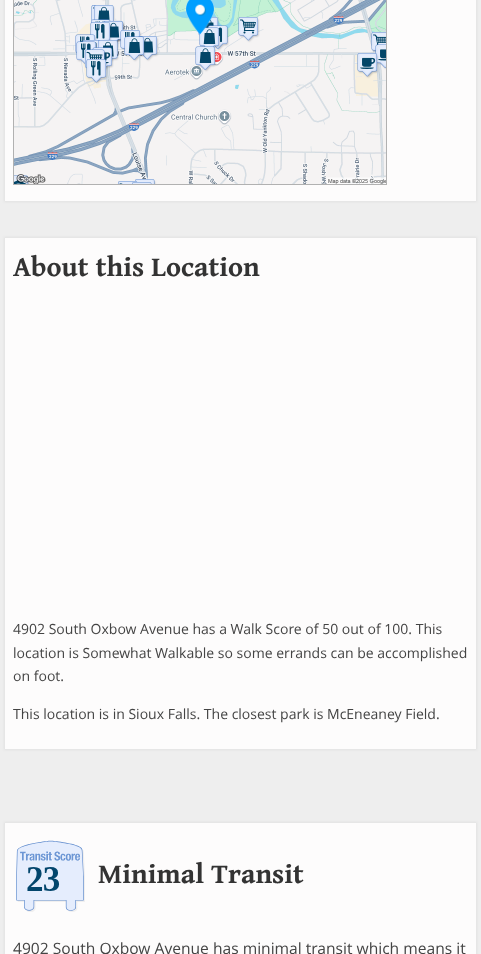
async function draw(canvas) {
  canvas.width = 481;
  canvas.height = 954;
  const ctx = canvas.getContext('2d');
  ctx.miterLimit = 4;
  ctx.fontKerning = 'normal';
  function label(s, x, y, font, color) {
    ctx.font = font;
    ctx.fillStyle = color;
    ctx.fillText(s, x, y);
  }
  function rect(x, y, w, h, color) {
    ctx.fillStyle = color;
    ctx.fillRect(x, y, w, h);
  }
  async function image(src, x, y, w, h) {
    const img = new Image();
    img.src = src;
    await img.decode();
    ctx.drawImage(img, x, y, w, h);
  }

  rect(0, 0, 481, 954, '#eee');
  ctx.fillStyle = '#e2e2e2';
  ctx.filter = 'blur(1px)';
  ctx.beginPath();
  ctx.rect(4, -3, 473, 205);
  ctx.fill();
  ctx.filter = 'none';
  rect(5, 0, 471, 201, '#fdfcfc');
  ctx.strokeStyle = '#b1b1b1';
  ctx.strokeRect(13.5, -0.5, 373, 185);
  await image('assets/img1.png', 14, 0, 372, 184);
  await image('assets/img2.png', 185, 0, 30, 35);
  ctx.fillStyle = '#e2e2e2';
  ctx.filter = 'blur(1px)';
  ctx.beginPath();
  ctx.rect(4, 237, 473, 513);
  ctx.fill();
  ctx.filter = 'none';
  rect(5, 238, 471, 511, '#fdfcfc');
  label('About this Location', 13, 276, 'bold 28.25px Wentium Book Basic', '#333');
  label('4902 South Oxbow Avenue has a Walk Score of 50 out of 100. This', 13, 634, '14px Open Sans', '#444');
  label('location is Somewhat Walkable so some errands can be accomplished', 13, 658, '14px Open Sans', '#444');
  label('on foot.', 13, 681, '14px Open Sans', '#444');
  label('This location is in Sioux Falls. The closest park is McEneaney Field.', 13, 719, '14px Open Sans', '#444');
  ctx.fillStyle = '#e2e2e2';
  ctx.filter = 'blur(1px)';
  ctx.beginPath();
  ctx.rect(4, 822, 473, 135);
  ctx.fill();
  ctx.filter = 'none';
  rect(5, 823, 471, 131, '#fdfcfc');
  await image('assets/img3.png', 16, 840, 69, 72);
  label('Minimal Transit', 98, 883, 'bold 28.25px Wentium Book Basic', '#333');
  label('4902 South Oxbow Avenue has minimal transit which means it', 13, 954, '15.6px Open Sans', '#444');
}

draw(document.querySelector('canvas'));
